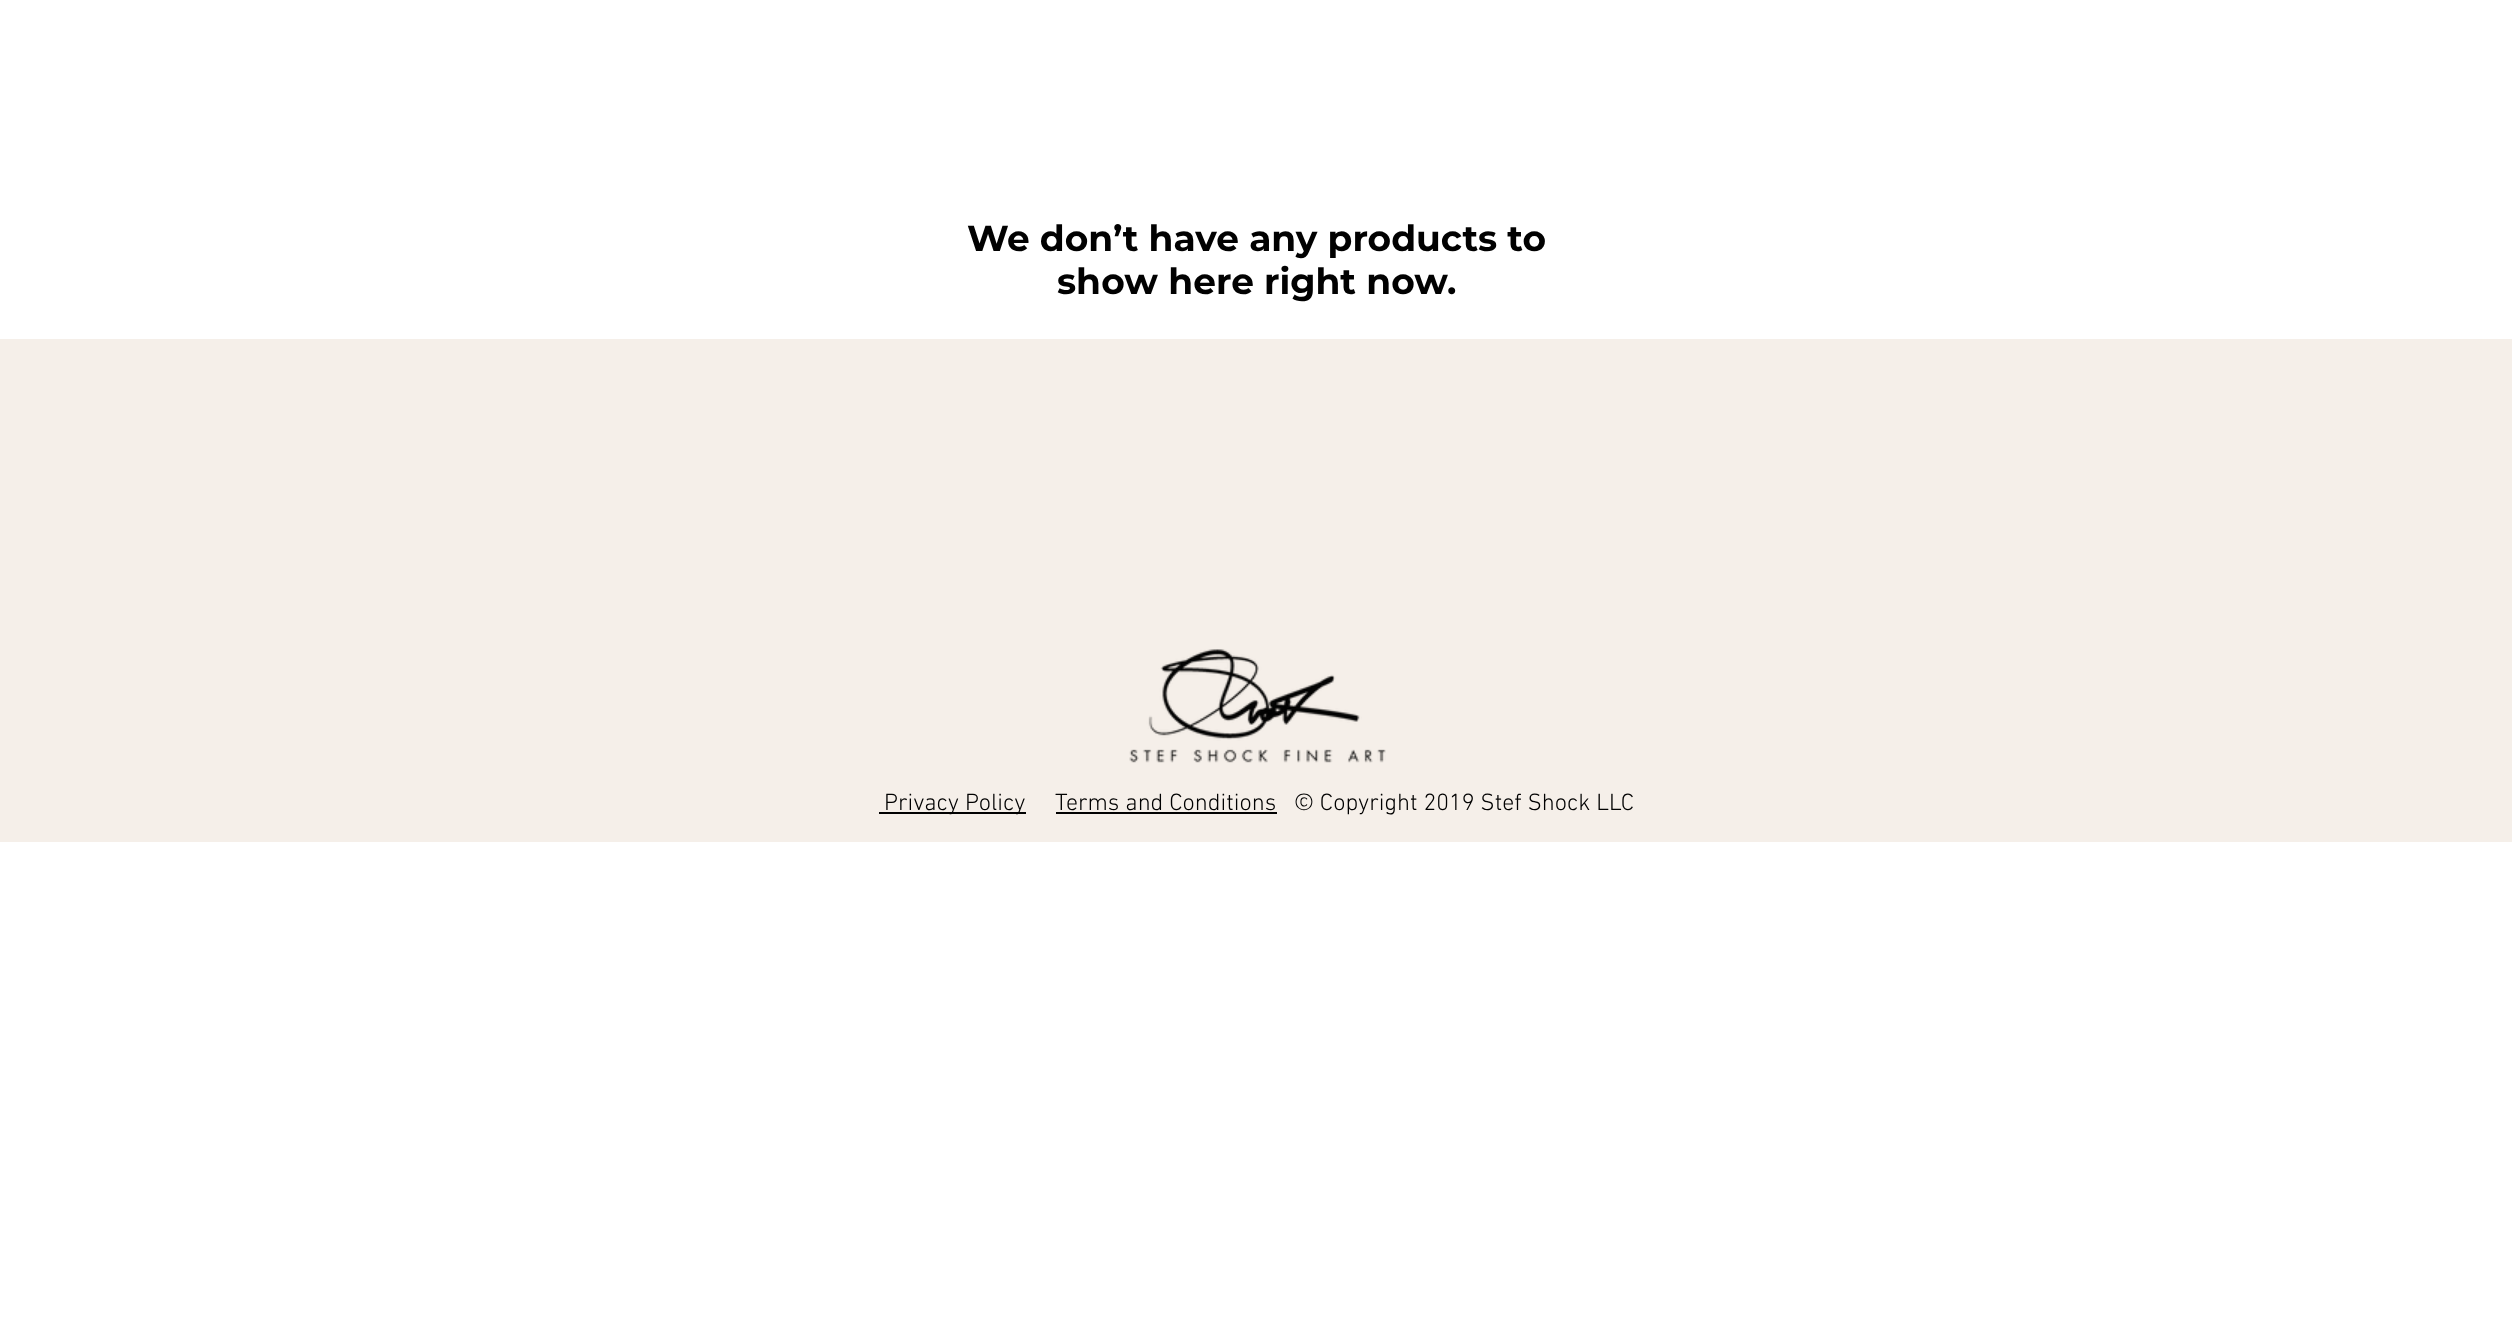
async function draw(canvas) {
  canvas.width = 2512;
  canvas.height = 1326;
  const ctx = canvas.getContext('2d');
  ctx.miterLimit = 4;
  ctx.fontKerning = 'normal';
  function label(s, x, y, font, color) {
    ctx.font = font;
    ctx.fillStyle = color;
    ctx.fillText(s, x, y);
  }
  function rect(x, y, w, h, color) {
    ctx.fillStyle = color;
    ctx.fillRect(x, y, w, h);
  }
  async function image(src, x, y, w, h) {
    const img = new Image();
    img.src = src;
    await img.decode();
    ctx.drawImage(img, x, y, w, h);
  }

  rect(0, 0, 2512, 1326, '#fff');
  label('We don’t have any products to', 967, 251, 'bold 36px Montserrat', '#010101');
  label('show here right now.', 1057, 294, 'bold 36px Montserrat', '#010101');
  rect(0, 339, 2512, 503, '#f5efe9');
  await image('assets/img1.png', 1129, 649, 257, 114);
  rect(879, 812, 147, 2, '#010101');
  label('Privacy Policy', 884, 810, '300 24px "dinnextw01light"', '#010101');
  label('Terms and Conditions', 1055, 810, '300 24px "dinnextw01light"', '#010101');
  rect(1056, 812, 221, 2, '#010101');
  label('© Copyright 2019 Stef Shock LLC', 1294, 810, '300 24px "dinnextw01light"', '#010101');
}

draw(document.querySelector('canvas'));
